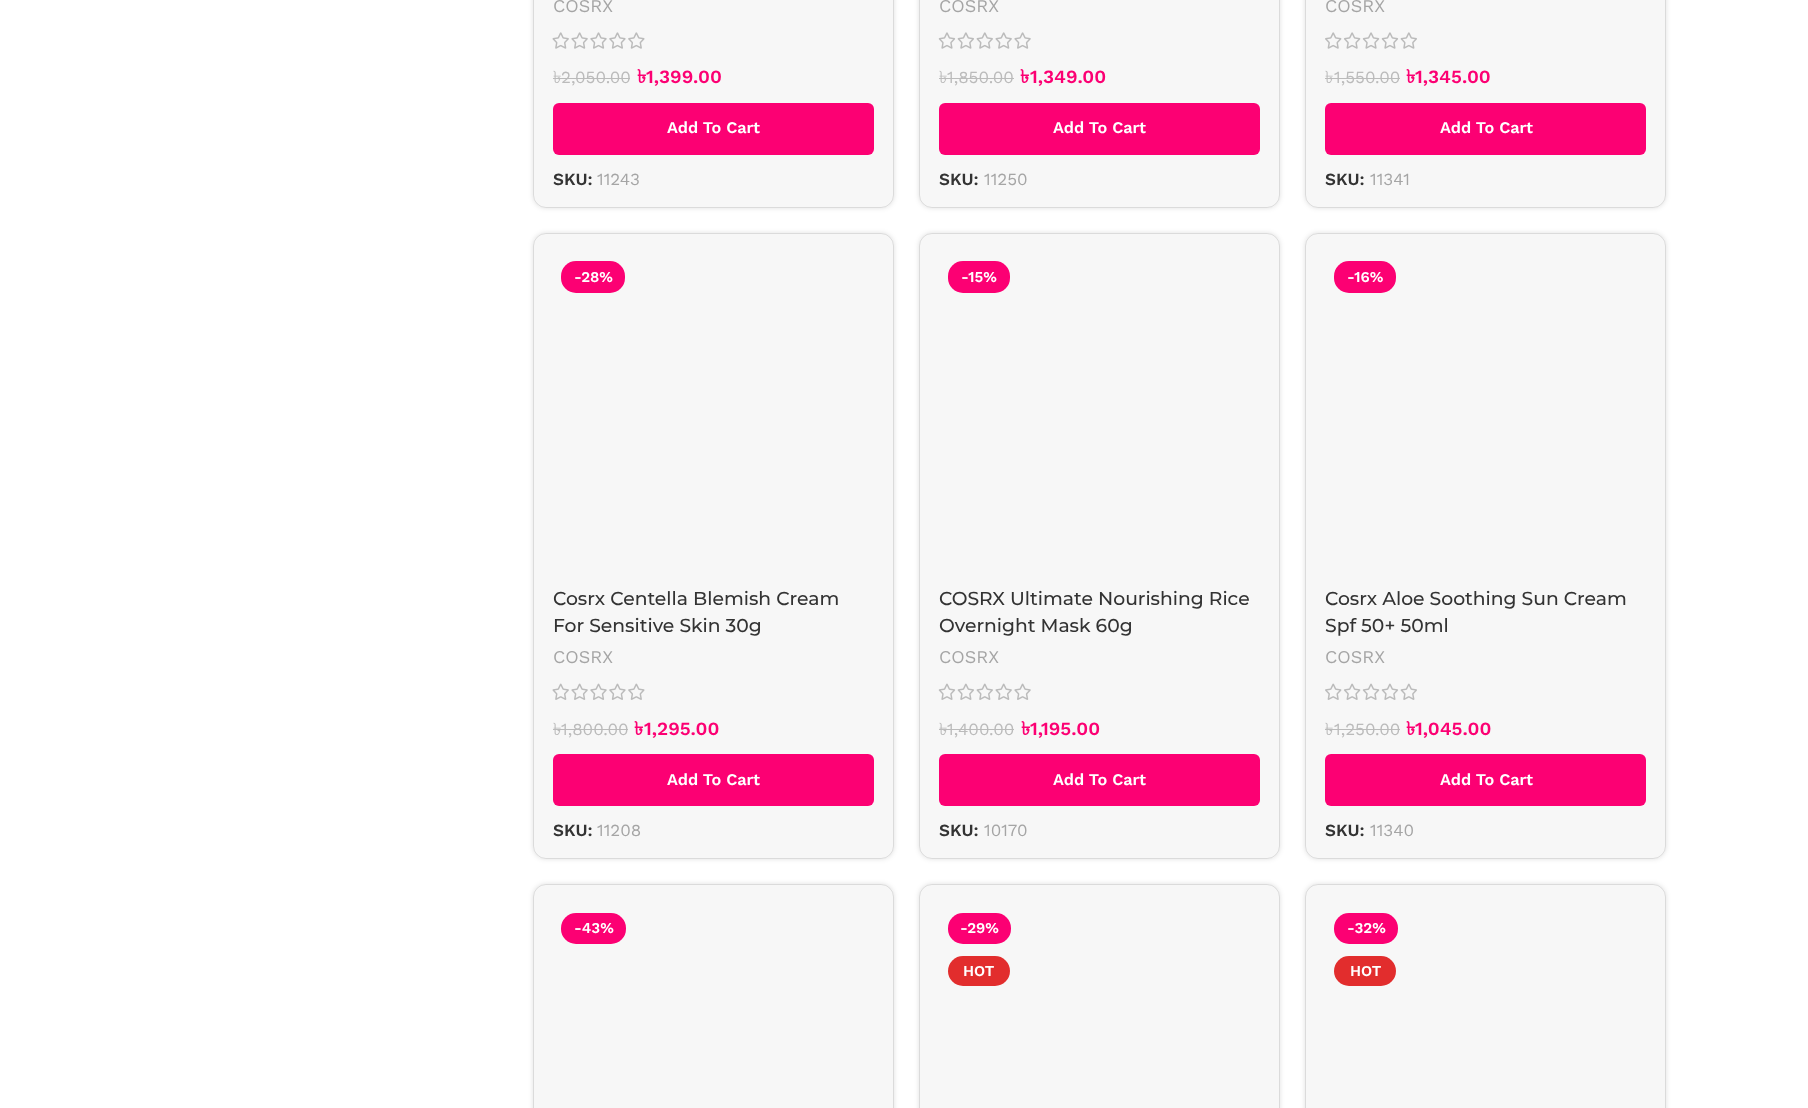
async function draw(canvas) {
  canvas.width = 1808;
  canvas.height = 1108;
  const ctx = canvas.getContext('2d');
  ctx.miterLimit = 4;
  ctx.fontKerning = 'normal';
  function label(s, x, y, font, color) {
    ctx.font = font;
    ctx.fillStyle = color;
    ctx.fillText(s, x, y);
  }
  function rect(x, y, w, h, color) {
    ctx.fillStyle = color;
    ctx.fillRect(x, y, w, h);
  }
  function roundedRect(x, y, w, h, r, color) {
    ctx.fillStyle = color;
    ctx.beginPath();
    ctx.roundRect(x, y, w, h, r);
    ctx.fill();
  }
  async function image(src, x, y, w, h) {
    const img = new Image();
    img.src = src;
    await img.decode();
    ctx.drawImage(img, x, y, w, h);
  }

  rect(0, 0, 1808, 1108, '#fff');
  ctx.fillStyle = '#0000001f';
  ctx.filter = 'blur(2.5px)';
  ctx.beginPath();
  ctx.roundRect(533, -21, 361, 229, 13);
  ctx.fill();
  ctx.filter = 'none';
  roundedRect(533, -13, 361, 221, 13, '#f7f7f7');
  ctx.beginPath();
  ctx.roundRect(533.5, -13.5, 360, 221, 12.5);
  ctx.strokeStyle = '#0000001c';
  ctx.stroke();
  label('COSRX', 553, 12, '18px Work Sans', '#a5a5a5');
  await image('assets/img1.png', 552, 32, 93, 17);
  label('৳', 553, 83, '17px Lohit Bengali', '#bbb');
  label('2,050.00', 561, 83, '17px Work Sans', '#bbb');
  rect(553, 78, 8, 1, '#bbb');
  rect(561, 78, 69, 1, '#bbb');
  label('৳', 637, 83, 'bold 18.75px Lohit Bengali', '#fc0073');
  label('1,399.00', 646, 83, '600 18.75px Work Sans', '#fc0073');
  roundedRect(553, 103, 321, 52, 6, '#fc0073');
  label('Add To Cart', 667, 133, '600 16.25px Work Sans', '#fff');
  label('SKU:', 553, 185, '600 17px Work Sans', '#333');
  label('11243', 597, 185, '17px Work Sans', '#a5a5a5');
  ctx.fillStyle = '#0000001f';
  ctx.filter = 'blur(2.5px)';
  ctx.beginPath();
  ctx.roundRect(919, -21, 361, 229, 13);
  ctx.fill();
  ctx.filter = 'none';
  roundedRect(919, -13, 361, 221, 13, '#f7f7f7');
  ctx.beginPath();
  ctx.roundRect(919.5, -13.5, 360, 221, 12.5);
  ctx.stroke();
  label('COSRX', 939, 12, '18px Work Sans', '#a5a5a5');
  await image('assets/img2.png', 938, 32, 93, 17);
  label('৳', 939, 83, '17px Lohit Bengali', '#bbb');
  rect(939, 78, 9, 1, '#bbb');
  label('1,850.00', 947, 83, '17px Work Sans', '#bbb');
  rect(948, 78, 66, 1, '#bbb');
  label('৳', 1020, 83, 'bold 18.75px Lohit Bengali', '#fc0073');
  label('1,349.00', 1030, 83, '600 18.75px Work Sans', '#fc0073');
  roundedRect(939, 103, 321, 52, 6, '#fc0073');
  label('Add To Cart', 1053, 133, '600 16.25px Work Sans', '#fff');
  label('SKU:', 939, 185, '600 17px Work Sans', '#333');
  label('11250', 984, 185, '17px Work Sans', '#a5a5a5');
  ctx.fillStyle = '#0000001f';
  ctx.filter = 'blur(2.5px)';
  ctx.beginPath();
  ctx.roundRect(1305, -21, 361, 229, 13);
  ctx.fill();
  ctx.filter = 'none';
  roundedRect(1305, -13, 361, 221, 13, '#f7f7f7');
  ctx.beginPath();
  ctx.roundRect(1305.5, -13.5, 360, 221, 12.5);
  ctx.stroke();
  label('COSRX', 1325, 12, '18px Work Sans', '#a5a5a5');
  await image('assets/img3.png', 1325, 32, 92, 17);
  label('৳', 1325, 83, '17px Lohit Bengali', '#bbb');
  label('1,550.00', 1334, 83, '17px Work Sans', '#bbb');
  rect(1325, 78, 9, 1, '#bbb');
  rect(1334, 78, 66, 1, '#bbb');
  label('৳', 1406, 83, 'bold 18.75px Lohit Bengali', '#fc0073');
  label('1,345.00', 1415, 83, '600 18.75px Work Sans', '#fc0073');
  roundedRect(1325, 103, 321, 52, 6, '#fc0073');
  label('Add To Cart', 1440, 133, '600 16.25px Work Sans', '#fff');
  label('SKU:', 1325, 185, '600 17px Work Sans', '#333');
  label('11341', 1370, 185, '17px Work Sans', '#a5a5a5');
  ctx.fillStyle = '#0000001f';
  ctx.filter = 'blur(2.5px)';
  ctx.beginPath();
  ctx.roundRect(533, 233, 361, 626, 13);
  ctx.fill();
  ctx.filter = 'none';
  roundedRect(533, 233, 361, 626, 13, '#f7f7f7');
  ctx.beginPath();
  ctx.roundRect(533.5, 233.5, 360, 625, 12.5);
  ctx.stroke();
  roundedRect(561, 261, 64, 32, 15, '#fc0073');
  label('-28%', 574, 282, '600 15px Work Sans', '#fff');
  label('Cosrx Centella Blemish Cream', 553, 605, '500 18.75px Montserrat', '#333');
  label('For Sensitive Skin 30g', 553, 632, '500 18.75px Montserrat', '#333');
  label('COSRX', 553, 663, '18px Work Sans', '#a5a5a5');
  await image('assets/img4.png', 552, 683, 93, 17);
  label('৳', 553, 735, '17px Lohit Bengali', '#bbb');
  rect(553, 729, 8, 1, '#bbb');
  rect(561, 729, 67, 1, '#bbb');
  label('1,800.00', 561, 735, '17px Work Sans', '#bbb');
  label('৳', 634, 735, 'bold 18.75px Lohit Bengali', '#fc0073');
  label('1,295.00', 644, 735, '600 18.75px Work Sans', '#fc0073');
  roundedRect(553, 754, 321, 52, 6, '#fc0073');
  label('Add To Cart', 667, 785, '600 16.25px Work Sans', '#fff');
  label('SKU:', 553, 836, '600 17px Work Sans', '#333');
  label('11208', 597, 836, '17px Work Sans', '#a5a5a5');
  ctx.fillStyle = '#0000001f';
  ctx.filter = 'blur(2.5px)';
  ctx.beginPath();
  ctx.roundRect(919, 233, 361, 626, 13);
  ctx.fill();
  ctx.filter = 'none';
  roundedRect(919, 233, 361, 626, 13, '#f7f7f7');
  ctx.beginPath();
  ctx.roundRect(919.5, 233.5, 360, 625, 12.5);
  ctx.stroke();
  roundedRect(948, 261, 62, 32, 15, '#fc0073');
  label('-15%', 961, 282, '600 15px Work Sans', '#fff');
  label('COSRX Ultimate Nourishing Rice', 939, 605, '500 18.75px Montserrat', '#333');
  label('Overnight Mask 60g', 939, 632, '500 18.75px Montserrat', '#333');
  label('COSRX', 939, 663, '18px Work Sans', '#a5a5a5');
  await image('assets/img5.png', 938, 683, 93, 17);
  label('৳', 939, 735, '17px Lohit Bengali', '#bbb');
  rect(939, 729, 9, 1, '#bbb');
  label('1,400.00', 947, 735, '17px Work Sans', '#bbb');
  rect(948, 729, 66, 1, '#bbb');
  label('৳', 1021, 735, 'bold 18.75px Lohit Bengali', '#fc0073');
  label('1,195.00', 1030, 735, '600 18.75px Work Sans', '#fc0073');
  roundedRect(939, 754, 321, 52, 6, '#fc0073');
  label('Add To Cart', 1053, 785, '600 16.25px Work Sans', '#fff');
  label('SKU:', 939, 836, '600 17px Work Sans', '#333');
  label('10170', 984, 836, '17px Work Sans', '#a5a5a5');
  ctx.fillStyle = '#0000001f';
  ctx.filter = 'blur(2.5px)';
  ctx.beginPath();
  ctx.roundRect(1305, 233, 361, 626, 13);
  ctx.fill();
  ctx.filter = 'none';
  roundedRect(1305, 233, 361, 626, 13, '#f7f7f7');
  ctx.beginPath();
  ctx.roundRect(1305.5, 233.5, 360, 625, 12.5);
  ctx.stroke();
  roundedRect(1334, 261, 62, 32, 15, '#fc0073');
  label('-16%', 1347, 282, '600 15px Work Sans', '#fff');
  label('Cosrx Aloe Soothing Sun Cream', 1325, 605, '500 18.75px Montserrat', '#333');
  label('Spf 50+ 50ml', 1325, 632, '500 18.75px Montserrat', '#333');
  label('COSRX', 1325, 663, '18px Work Sans', '#a5a5a5');
  await image('assets/img6.png', 1325, 683, 92, 17);
  label('৳', 1325, 735, '17px Lohit Bengali', '#bbb');
  rect(1325, 729, 9, 1, '#bbb');
  rect(1334, 729, 66, 1, '#bbb');
  label('1,250.00', 1334, 735, '17px Work Sans', '#bbb');
  label('৳', 1406, 735, 'bold 18.75px Lohit Bengali', '#fc0073');
  label('1,045.00', 1415, 735, '600 18.75px Work Sans', '#fc0073');
  roundedRect(1325, 754, 321, 52, 6, '#fc0073');
  label('Add To Cart', 1440, 785, '600 16.25px Work Sans', '#fff');
  label('SKU:', 1325, 836, '600 17px Work Sans', '#333');
  label('11340', 1370, 836, '17px Work Sans', '#a5a5a5');
  ctx.fillStyle = '#0000001f';
  ctx.filter = 'blur(2.5px)';
  ctx.beginPath();
  ctx.roundRect(533, 884, 361, 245, 13);
  ctx.fill();
  ctx.filter = 'none';
  roundedRect(533, 884, 361, 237, 13, '#f7f7f7');
  ctx.beginPath();
  ctx.roundRect(533.5, 884.5, 360, 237, 12.5);
  ctx.stroke();
  roundedRect(561, 913, 65, 31, 15, '#fc0073');
  label('-43%', 574, 933, '600 15px Work Sans', '#fff');
  ctx.fillStyle = '#0000001f';
  ctx.filter = 'blur(2.5px)';
  ctx.beginPath();
  ctx.roundRect(919, 884, 361, 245, 13);
  ctx.fill();
  ctx.filter = 'none';
  roundedRect(919, 884, 361, 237, 13, '#f7f7f7');
  ctx.beginPath();
  ctx.roundRect(919.5, 884.5, 360, 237, 12.5);
  ctx.stroke();
  roundedRect(948, 913, 63, 31, 15, '#fc0073');
  label('-29%', 960, 933, '600 15px Work Sans', '#fff');
  roundedRect(948, 956, 62, 30, 15, '#e22d2d');
  label('HOT', 963, 976, '600 15px Work Sans', '#fff');
  ctx.fillStyle = '#0000001f';
  ctx.filter = 'blur(2.5px)';
  ctx.beginPath();
  ctx.roundRect(1305, 884, 361, 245, 13);
  ctx.fill();
  ctx.filter = 'none';
  roundedRect(1305, 884, 361, 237, 13, '#f7f7f7');
  ctx.beginPath();
  ctx.roundRect(1305.5, 884.5, 360, 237, 12.5);
  ctx.stroke();
  roundedRect(1334, 913, 64, 31, 15, '#fc0073');
  label('-32%', 1347, 933, '600 15px Work Sans', '#fff');
  roundedRect(1334, 956, 62, 30, 15, '#e22d2d');
  label('HOT', 1350, 976, '600 15px Work Sans', '#fff');
}

draw(document.querySelector('canvas'));
